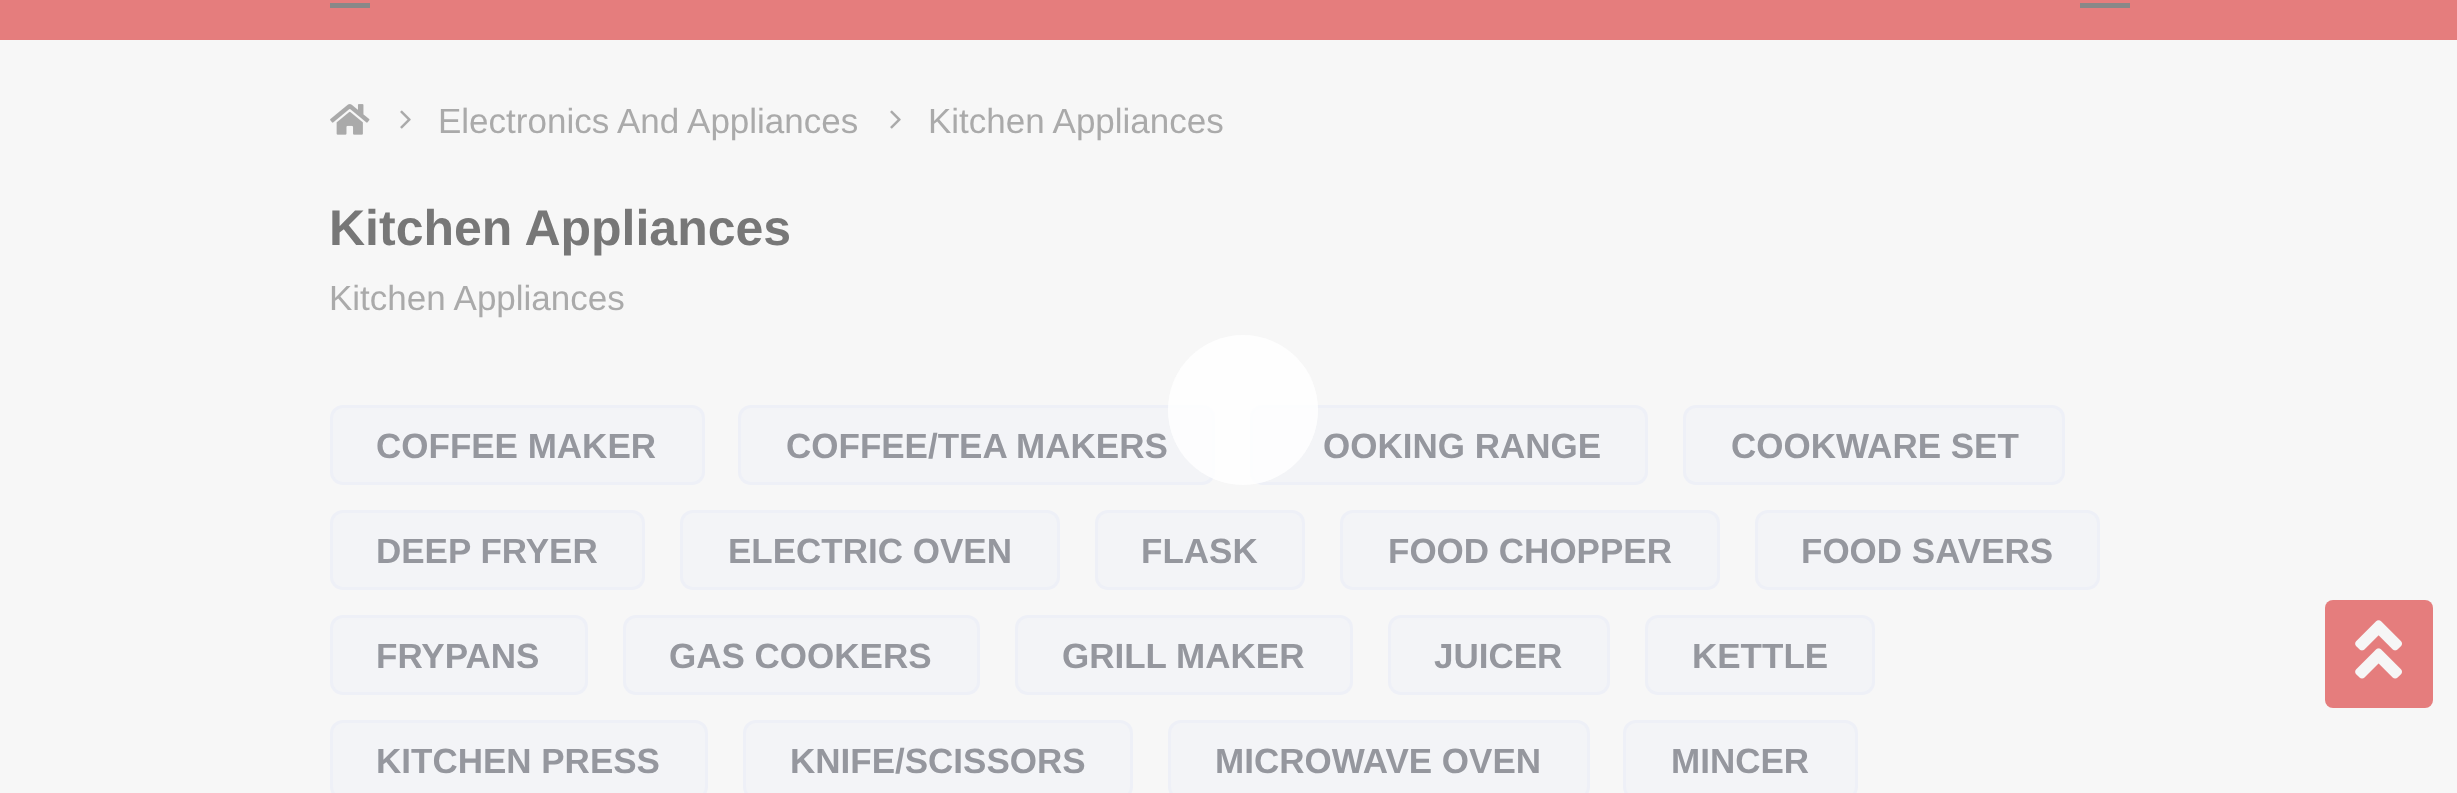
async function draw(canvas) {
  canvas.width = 2457;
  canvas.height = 793;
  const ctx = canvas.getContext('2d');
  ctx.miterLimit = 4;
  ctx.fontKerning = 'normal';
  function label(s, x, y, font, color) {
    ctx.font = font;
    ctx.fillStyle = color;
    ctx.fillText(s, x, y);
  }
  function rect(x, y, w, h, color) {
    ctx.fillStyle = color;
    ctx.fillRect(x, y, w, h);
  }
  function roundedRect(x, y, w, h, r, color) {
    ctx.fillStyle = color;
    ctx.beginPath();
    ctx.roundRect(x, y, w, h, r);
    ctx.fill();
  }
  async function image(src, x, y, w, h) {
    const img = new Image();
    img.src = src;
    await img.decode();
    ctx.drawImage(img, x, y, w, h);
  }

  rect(0, 0, 2457, 793, '#f7f7f7');
  rect(0, 0, 2457, 40, '#e57d7d');
  rect(330, 3, 40, 5, '#888');
  rect(2080, 3, 50, 5, '#888');
  await image('assets/img1.png', 330, 104, 40, 31);
  await image('assets/img2.png', 400, 110, 11, 19);
  label('Electronics And Appliances', 438, 133, '35px Liberation Sans', '#aaa');
  await image('assets/img2.png', 890, 110, 11, 19);
  label('Kitchen Appliances', 928, 133, '35px Liberation Sans', '#aaa');
  label('Kitchen Appliances', 329, 245, 'bold 50px Liberation Sans', '#777');
  label('Kitchen Appliances', 329, 310, '35px Liberation Sans', '#aaa');
  ctx.fillStyle = '#f3f4f7';
  ctx.beginPath();
  ctx.roundRect(331.5, 406.5, 372, 77, 11.5);
  ctx.fill();
  ctx.strokeStyle = '#eef0f7';
  ctx.lineWidth = 3;
  ctx.stroke();
  label('COFFEE MAKER', 376, 458, 'bold 35px Liberation Sans', '#95979e');
  ctx.fillStyle = '#f3f4f7';
  ctx.beginPath();
  ctx.roundRect(739.5, 406.5, 474, 77, 11.5);
  ctx.fill();
  ctx.stroke();
  label('COFFEE/TEA MAKERS', 786, 458, 'bold 35px Liberation Sans', '#95979e');
  ctx.fillStyle = '#f3f4f7';
  ctx.beginPath();
  ctx.roundRect(1251.5, 406.5, 395, 77, 11.5);
  ctx.fill();
  ctx.stroke();
  label('OOKING RANGE', 1323, 458, 'bold 35px Liberation Sans', '#95979e');
  ctx.fillStyle = '#f3f4f7';
  ctx.beginPath();
  ctx.roundRect(1684.5, 406.5, 379, 77, 11.5);
  ctx.fill();
  ctx.stroke();
  label('COOKWARE SET', 1731, 458, 'bold 35px Liberation Sans', '#95979e');
  ctx.fillStyle = '#f3f4f7';
  ctx.beginPath();
  ctx.roundRect(331.5, 511.5, 312, 77, 11.5);
  ctx.fill();
  ctx.stroke();
  label('DEEP FRYER', 376, 563, 'bold 35px Liberation Sans', '#95979e');
  ctx.fillStyle = '#f3f4f7';
  ctx.beginPath();
  ctx.roundRect(681.5, 511.5, 377, 77, 11.5);
  ctx.fill();
  ctx.stroke();
  label('ELECTRIC OVEN', 728, 563, 'bold 35px Liberation Sans', '#95979e');
  ctx.fillStyle = '#f3f4f7';
  ctx.beginPath();
  ctx.roundRect(1096.5, 511.5, 207, 77, 11.5);
  ctx.fill();
  ctx.stroke();
  label('FLASK', 1141, 563, 'bold 35px Liberation Sans', '#95979e');
  ctx.fillStyle = '#f3f4f7';
  ctx.beginPath();
  ctx.roundRect(1341.5, 511.5, 377, 77, 11.5);
  ctx.fill();
  ctx.stroke();
  label('FOOD CHOPPER', 1388, 563, 'bold 35px Liberation Sans', '#95979e');
  ctx.fillStyle = '#f3f4f7';
  ctx.beginPath();
  ctx.roundRect(1756.5, 511.5, 342, 77, 11.5);
  ctx.fill();
  ctx.stroke();
  label('FOOD SAVERS', 1801, 563, 'bold 35px Liberation Sans', '#95979e');
  ctx.fillStyle = '#f3f4f7';
  ctx.beginPath();
  ctx.roundRect(331.5, 616.5, 255, 77, 11.5);
  ctx.fill();
  ctx.stroke();
  label('FRYPANS', 376, 668, 'bold 35px Liberation Sans', '#95979e');
  ctx.fillStyle = '#f3f4f7';
  ctx.beginPath();
  ctx.roundRect(624.5, 616.5, 354, 77, 11.5);
  ctx.fill();
  ctx.stroke();
  label('GAS COOKERS', 669, 668, 'bold 35px Liberation Sans', '#95979e');
  ctx.fillStyle = '#f3f4f7';
  ctx.beginPath();
  ctx.roundRect(1016.5, 616.5, 335, 77, 11.5);
  ctx.fill();
  ctx.stroke();
  label('GRILL MAKER', 1062, 668, 'bold 35px Liberation Sans', '#95979e');
  ctx.fillStyle = '#f3f4f7';
  ctx.beginPath();
  ctx.roundRect(1389.5, 616.5, 219, 77, 11.5);
  ctx.fill();
  ctx.stroke();
  label('JUICER', 1434, 668, 'bold 35px Liberation Sans', '#95979e');
  ctx.fillStyle = '#f3f4f7';
  ctx.beginPath();
  ctx.roundRect(1646.5, 616.5, 227, 77, 11.5);
  ctx.fill();
  ctx.stroke();
  label('KETTLE', 1692, 668, 'bold 35px Liberation Sans', '#95979e');
  ctx.fillStyle = '#f3f4f7';
  ctx.beginPath();
  ctx.roundRect(331.5, 721.5, 375, 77, 11.5);
  ctx.fill();
  ctx.stroke();
  label('KITCHEN PRESS', 376, 773, 'bold 35px Liberation Sans', '#95979e');
  ctx.fillStyle = '#f3f4f7';
  ctx.beginPath();
  ctx.roundRect(744.5, 721.5, 387, 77, 11.5);
  ctx.fill();
  ctx.stroke();
  label('KNIFE/SCISSORS', 790, 773, 'bold 35px Liberation Sans', '#95979e');
  ctx.fillStyle = '#f3f4f7';
  ctx.beginPath();
  ctx.roundRect(1169.5, 721.5, 419, 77, 11.5);
  ctx.fill();
  ctx.stroke();
  label('MICROWAVE OVEN', 1215, 773, 'bold 35px Liberation Sans', '#95979e');
  ctx.fillStyle = '#f3f4f7';
  ctx.beginPath();
  ctx.roundRect(1624.5, 721.5, 232, 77, 11.5);
  ctx.fill();
  ctx.stroke();
  label('MINCER', 1671, 773, 'bold 35px Liberation Sans', '#95979e');
  ctx.fillStyle = '#ffffff99';
  ctx.beginPath();
  ctx.arc(1243, 410, 75, 0, 2 * Math.PI);
  ctx.fill();
  ctx.beginPath();
  ctx.arc(1243, 410, 75, 0, 2 * Math.PI);
  ctx.fill();
  roundedRect(2325, 600, 108, 108, 8, '#e57d7d');
  await image('assets/img3.png', 2355, 620, 47, 59);
}

draw(document.querySelector('canvas'));
